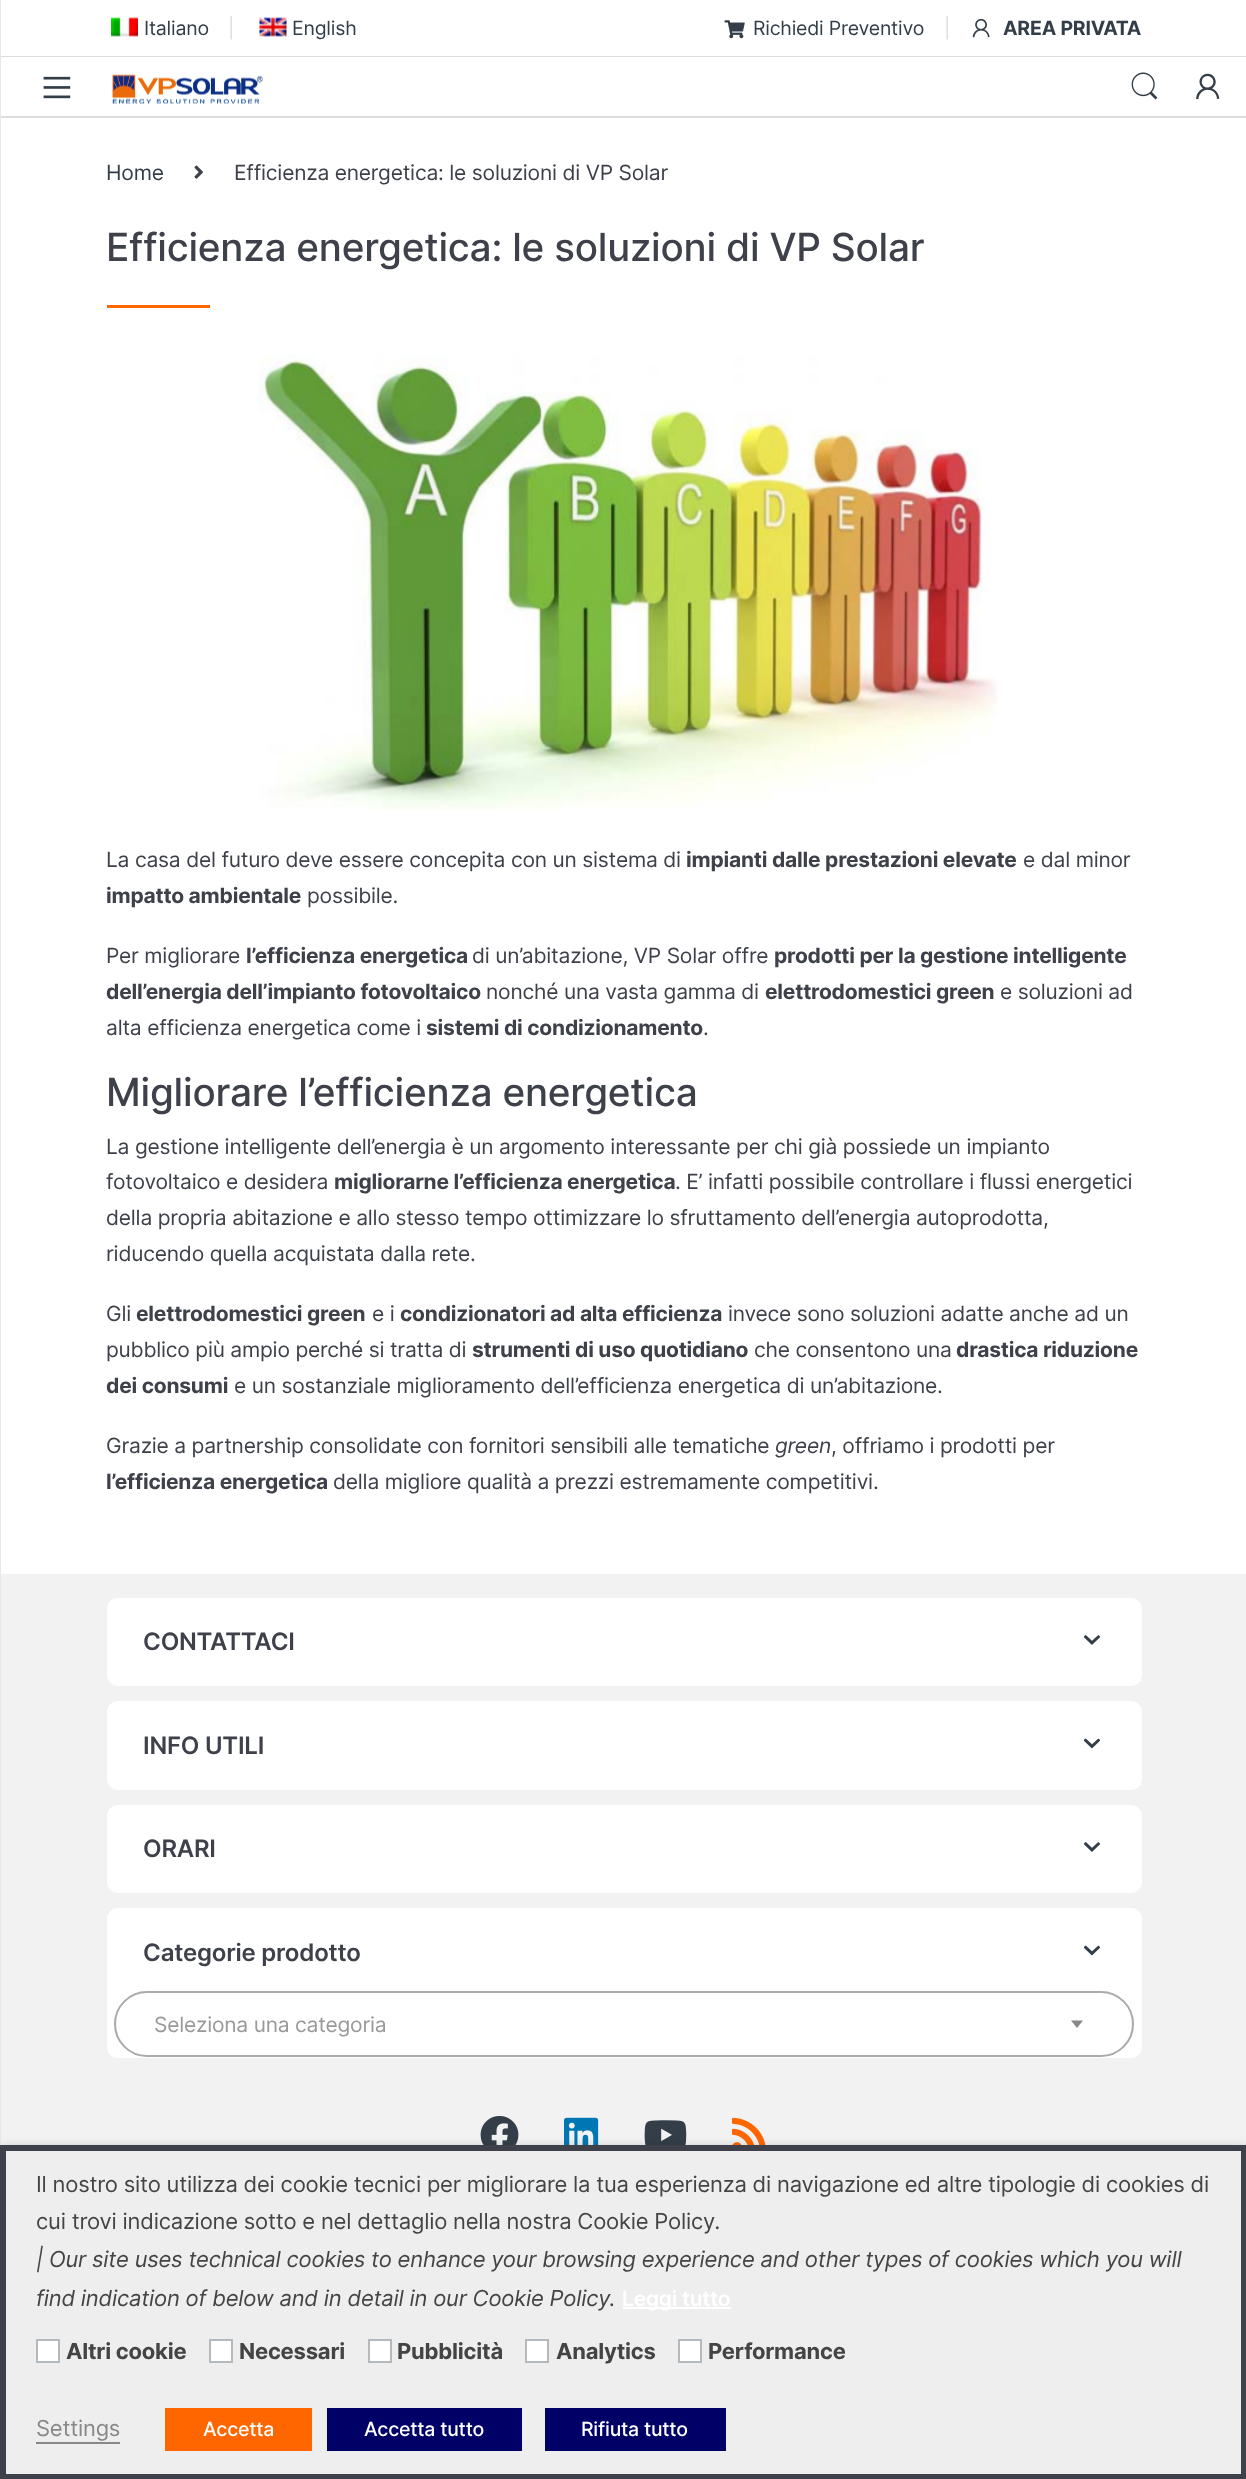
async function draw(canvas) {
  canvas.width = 1246;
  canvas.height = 2479;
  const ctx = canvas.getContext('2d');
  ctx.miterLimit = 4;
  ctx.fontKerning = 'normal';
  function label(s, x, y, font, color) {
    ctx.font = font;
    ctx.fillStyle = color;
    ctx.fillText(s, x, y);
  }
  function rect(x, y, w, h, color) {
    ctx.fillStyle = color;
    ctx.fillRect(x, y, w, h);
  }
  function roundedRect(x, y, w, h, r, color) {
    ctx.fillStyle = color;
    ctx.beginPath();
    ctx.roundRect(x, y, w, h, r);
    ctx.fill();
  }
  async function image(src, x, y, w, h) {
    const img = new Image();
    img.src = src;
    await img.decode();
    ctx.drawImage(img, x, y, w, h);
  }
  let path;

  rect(0, 0, 1246, 2479, '#fff');
  rect(0, 116, 1246, 2, '#ddd');
  rect(0, 56, 1246, 1, '#ddd');
  rect(0, 0, 1, 2145, '#e3e9ef');
  await image('assets/img1.png', 43, 76, 28, 23);
  await image('assets/img2.png', 112, 74, 151, 30);
  await image('assets/img3.png', 1131, 72, 27, 28);
  await image('assets/img4.png', 1196, 73, 24, 27);
  await image('assets/img5.png', 111, 17, 27, 20);
  ctx.letterSpacing = '-0.21px';
  label('Italiano', 144, 35, '19.5px Inter', '#333e48');
  label('|', 228, 35, '19.5px Inter', '#ddd');
  await image('assets/img6.png', 259, 17, 28, 20);
  label('English', 292, 35, '19.5px Inter', '#333e48');
  await image('assets/img7.png', 724, 20, 21, 19);
  label('Richiedi Preventivo', 753, 35, '19.5px Inter', '#333e48');
  label('|', 944, 35, '19.5px Inter', '#ddd');
  await image('assets/img8.png', 972, 18, 18, 20);
  label('AREA PRIVATA', 1003, 35, 'bold 19.5px Inter', '#333e48');
  label('Home', 106, 180, '21px Inter', '#333e48');
  await image('assets/img9.png', 194, 165, 9, 14);
  label('Efficienza energetica: le soluzioni di VP Solar', 234, 180, '21px Inter', '#3e414a');
  label('Efficienza energetica: le soluzioni di VP Solar', 106, 261, '500 38.7px Inter', '#3e414a');
  rect(107, 305, 103, 3, '#f60');
  await image('assets/img10.png', 258, 355, 740, 455);
  label('La casa del futuro deve essere concepita con un sistema di', 106, 867, '21px Inter', '#3e414a');
  label('impianti dalle prestazioni elevate', 686, 867, 'bold 21px Inter', '#3e414a');
  label('e dal minor', 1023, 867, '21px Inter', '#3e414a');
  label('impatto ambientale', 106, 903, 'bold 21px Inter', '#3e414a');
  label('possibile.', 307, 903, '21px Inter', '#3e414a');
  label('Per migliorare', 106, 963, '21px Inter', '#3e414a');
  label('l’efficienza energetica', 246, 963, 'bold 21px Inter', '#3e414a');
  label('di un’abitazione, VP Solar offre', 472, 963, '21px Inter', '#3e414a');
  label('prodotti per la gestione intelligente', 774, 963, 'bold 21px Inter', '#3e414a');
  label('dell’energia dell’impianto fotovoltaico', 106, 999, 'bold 21px Inter', '#3e414a');
  label('nonché una vasta gamma di', 486, 999, '21px Inter', '#3e414a');
  label('elettrodomestici green', 765, 999, 'bold 21px Inter', '#3e414a');
  label('e soluzioni ad', 1000, 999, '21px Inter', '#3e414a');
  label('alta efficienza energetica come i', 106, 1035, '21px Inter', '#3e414a');
  label('sistemi di condizionamento', 426, 1035, 'bold 21px Inter', '#3e414a');
  label('.', 703, 1035, '21px Inter', '#3e414a');
  label('Migliorare l’efficienza energetica', 106, 1106, '500 38.7px Inter', '#3e414a');
  label('La gestione intelligente dell’energia è un argomento interessante per chi già possiede un impianto', 106, 1154, '21px Inter', '#3e414a');
  label('fotovoltaico e desidera', 106, 1189, '21px Inter', '#3e414a');
  label('migliorarne l’efficienza energetica', 334, 1189, 'bold 21px Inter', '#3e414a');
  label('. E’ infatti possibile controllare i flussi energetici', 675, 1189, '21px Inter', '#3e414a');
  label('della propria abitazione e allo stesso tempo ottimizzare lo sfruttamento dell’energia autoprodotta,', 106, 1225, '21px Inter', '#3e414a');
  label('riducendo quella acquistata dalla rete.', 106, 1261, '21px Inter', '#3e414a');
  label('Gli', 106, 1321, '21px Inter', '#3e414a');
  label('elettrodomestici green', 136, 1321, 'bold 21px Inter', '#3e414a');
  label('e i', 372, 1321, '21px Inter', '#3e414a');
  label('condizionatori ad alta efficienza', 400, 1321, 'bold 21px Inter', '#3e414a');
  label('invece sono soluzioni adatte anche ad un', 728, 1321, '21px Inter', '#3e414a');
  label('pubblico più ampio perché si tratta di', 106, 1357, '21px Inter', '#3e414a');
  label('strumenti di uso quotidiano', 472, 1357, 'bold 21px Inter', '#3e414a');
  label('che consentono una', 754, 1357, '21px Inter', '#3e414a');
  label('drastica riduzione', 956, 1357, 'bold 21px Inter', '#3e414a');
  label('dei consumi', 106, 1393, 'bold 21px Inter', '#3e414a');
  label('e un sostanziale miglioramento dell’efficienza energetica di un’abitazione.', 234, 1393, '21px Inter', '#3e414a');
  label('Grazie a partnership consolidate con fornitori sensibili alle tematiche', 106, 1453, '21px Inter', '#3e414a');
  label('green', 775, 1453, 'italic 21px Inter', '#3e414a');
  label(', offriamo i prodotti per', 831, 1453, '21px Inter', '#3e414a');
  label('l’efficienza energetica', 106, 1489, 'bold 21px Inter', '#3e414a');
  label('della migliore qualità a prezzi estremamente competitivi.', 333, 1489, '21px Inter', '#3e414a');
  rect(1, 1574, 1245, 571, '#f2f2f2');
  roundedRect(107, 1598, 1035, 88, 11, '#fff');
  label('CONTATTACI', 143, 1650, '600 24px Inter', '#3e414a');
  await image('assets/img11.png', 1084, 1635, 16, 10);
  roundedRect(107, 1701, 1035, 89, 11, '#fff');
  label('INFO UTILI', 143, 1754, '600 24px Inter', '#3e414a');
  await image('assets/img12.png', 1083, 1738, 17, 11);
  roundedRect(107, 1805, 1035, 88, 11, '#fff');
  label('ORARI', 143, 1857, '600 24px Inter', '#3e414a');
  await image('assets/img11.png', 1084, 1842, 16, 10);
  roundedRect(107, 1908, 1035, 150, 11, '#fff');
  label('Categorie prodotto', 143, 1961, '600 24px Inter', '#3e414a');
  await image('assets/img12.png', 1083, 1945, 17, 11);
  ctx.beginPath();
  ctx.roundRect(115, 1992, 1018, 64, 32);
  ctx.strokeStyle = '#aaa';
  ctx.lineWidth = 2;
  ctx.stroke();
  label('Seleziona una categoria', 154, 2032, '21px Inter', '#999');
  ctx.fillStyle = '#888';
  path = new Path2D('M1071 2020.5H1083L1077 2028Z');
  ctx.fill(path);
  await image('assets/img13.png', 480, 2116, 39, 29);
  await image('assets/img14.png', 564, 2117, 35, 28);
  await image('assets/img15.png', 644, 2120, 43, 25);
  await image('assets/img16.png', 732, 2117, 34, 28);
  ctx.fillStyle = '#00000080';
  ctx.filter = 'blur(7.5px)';
  ctx.beginPath();
  ctx.rect(0, 2153, 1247, 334);
  ctx.fill();
  ctx.filter = 'none';
  ctx.fillStyle = '#eee';
  ctx.beginPath();
  ctx.rect(3, 2148, 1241, 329);
  ctx.fill();
  ctx.strokeStyle = '#3e414a';
  ctx.lineWidth = 6;
  ctx.stroke();
  label('Il nostro sito utilizza dei cookie tecnici per migliorare la tua esperienza di navigazione ed altre tipologie di cookies di', 36, 2192, '22px Inter', '#444');
  label('cui trovi indicazione sotto e nel dettaglio nella nostra Cookie Policy.', 36, 2229, '22px Inter', '#444');
  label('| Our site uses technical cookies to enhance your browsing experience and other types of cookies which you will', 36, 2267, 'italic 22px Inter', '#444');
  label('find indication of below and in detail in our Cookie Policy.', 36, 2306, 'italic 22px Inter', '#444');
  rect(623, 2307, 108, 2, '#fff');
  label('Leggi tutto', 622, 2306, '600 21px Inter', '#fff');
  ctx.beginPath();
  ctx.rect(37, 2340, 22, 22);
  ctx.fill();
  ctx.strokeStyle = '#b4b9be';
  ctx.lineWidth = 2;
  ctx.stroke();
  label('Altri cookie', 66, 2359, 'bold 22px Inter', '#444');
  ctx.fillStyle = '#fff';
  ctx.beginPath();
  ctx.rect(210, 2340, 22, 22);
  ctx.fill();
  ctx.stroke();
  label('Necessari', 239, 2359, 'bold 22px Inter', '#444');
  ctx.fillStyle = '#fff';
  ctx.beginPath();
  ctx.rect(369, 2340, 22, 22);
  ctx.fill();
  ctx.stroke();
  label('Pubblicità', 397, 2359, 'bold 22px Inter', '#444');
  ctx.fillStyle = '#fff';
  ctx.beginPath();
  ctx.rect(526, 2340, 22, 22);
  ctx.fill();
  ctx.stroke();
  label('Analytics', 556, 2359, 'bold 22px Inter', '#444');
  ctx.fillStyle = '#fff';
  ctx.beginPath();
  ctx.rect(679, 2340, 22, 22);
  ctx.fill();
  ctx.stroke();
  label('Performance', 708, 2359, 'bold 22px Inter', '#444');
  label('Settings', 36, 2436, '22px Inter', '#898888');
  rect(36, 2442, 84, 2, '#898888');
  rect(165, 2408, 147, 43, '#f60');
  label('Accetta', 203, 2436, '500 19.5px Inter', '#fff');
  rect(327, 2408, 195, 43, '#006');
  label('Accetta tutto', 364, 2436, '500 19.5px Inter', '#fff');
  rect(545, 2408, 181, 43, '#006');
  label('Rifiuta tutto', 581, 2436, '500 19.5px Inter', '#fff');
}

draw(document.querySelector('canvas'));
